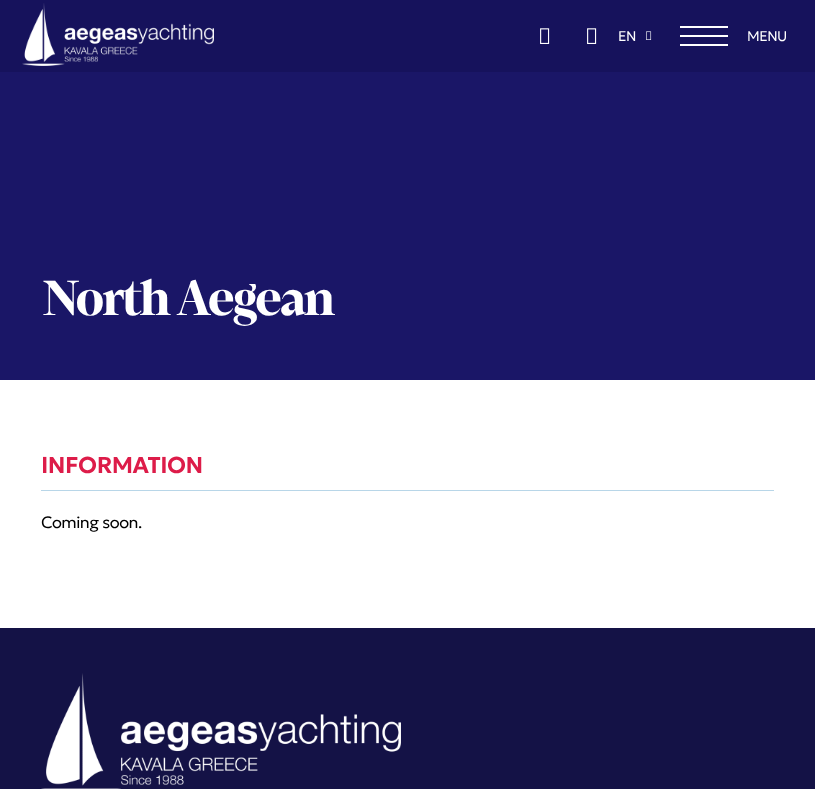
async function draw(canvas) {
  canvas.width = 815;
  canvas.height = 789;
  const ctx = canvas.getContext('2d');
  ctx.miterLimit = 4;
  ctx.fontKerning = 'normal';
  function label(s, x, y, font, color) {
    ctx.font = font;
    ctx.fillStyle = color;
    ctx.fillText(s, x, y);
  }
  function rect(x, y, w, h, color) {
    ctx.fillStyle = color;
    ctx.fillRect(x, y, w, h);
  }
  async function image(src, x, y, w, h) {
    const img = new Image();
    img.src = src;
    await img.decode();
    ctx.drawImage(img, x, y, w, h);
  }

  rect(0, 0, 815, 789, '#fff');
  rect(0, 0, 815, 72, '#16125c');
  await image('assets/img1.png', 22, 3, 192, 63);
  await image('assets/img2.png', 540, 28, 10, 16);
  await image('assets/img2.png', 587, 28, 10, 16);
  ctx.letterSpacing = '-0.5px';
  label('EN', 618, 41, '300 14px Geologica', '#fff');
  await image('assets/img3.png', 646, 31, 6, 9);
  rect(680, 26, 48, 2, '#fff');
  rect(680, 35, 48, 2, '#fff');
  rect(680, 44, 48, 2, '#fff');
  label('MENU', 747, 41, '300 14px Geologica', '#fff');
  rect(0, 72, 815, 308, '#1a1667');
  ctx.letterSpacing = '-2.4px';
  label('North Aegean', 41, 315, 'bold 49.5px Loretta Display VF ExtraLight', '#fff');
  rect(41, 490, 733, 1, '#b8d6e8');
  ctx.letterSpacing = '-0.5px';
  label('INFORMATION', 41, 473, '600 23px Geologica', '#dd1c49');
  label('Coming soon.', 41, 528, '300 16.5px Geologica', '#000');
  rect(0, 628, 815, 161, '#141246');
  await image('assets/img4.png', 41, 673, 360, 116);
}

draw(document.querySelector('canvas'));
